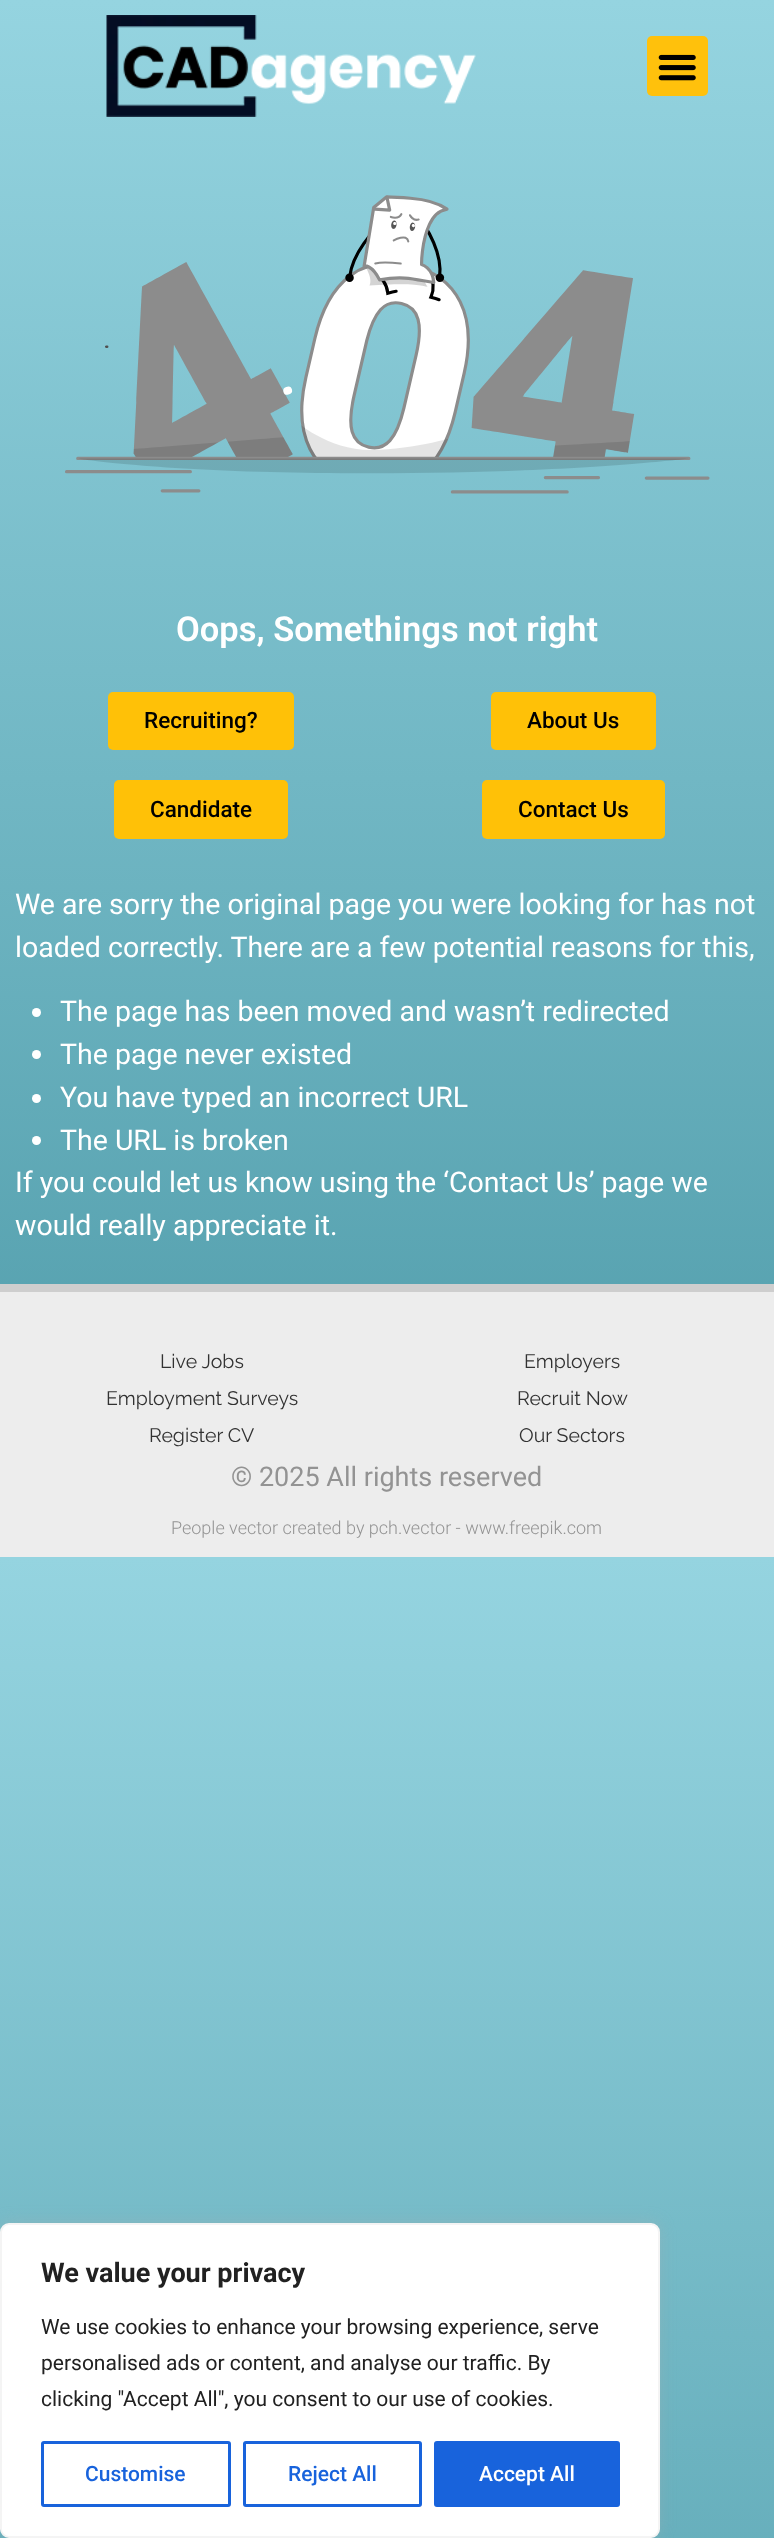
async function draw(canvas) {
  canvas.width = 774;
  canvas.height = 2538;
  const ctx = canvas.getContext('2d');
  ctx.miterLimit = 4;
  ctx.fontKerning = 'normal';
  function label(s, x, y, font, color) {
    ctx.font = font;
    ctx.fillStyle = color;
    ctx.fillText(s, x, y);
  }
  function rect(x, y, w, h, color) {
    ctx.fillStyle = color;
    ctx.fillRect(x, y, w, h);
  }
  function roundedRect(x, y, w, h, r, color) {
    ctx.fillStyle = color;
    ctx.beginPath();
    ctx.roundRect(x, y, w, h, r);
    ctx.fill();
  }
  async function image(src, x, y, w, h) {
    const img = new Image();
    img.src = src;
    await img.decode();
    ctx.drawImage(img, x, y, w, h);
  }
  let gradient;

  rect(0, 0, 774, 2538, '#fff');
  gradient = ctx.createLinearGradient(387, 0, 387, 1557);
  gradient.addColorStop(0, '#95d4e0');
  gradient.addColorStop(1, '#4d9aa8');
  ctx.fillStyle = gradient;
  ctx.fillRect(0, 0, 774, 1284);
  gradient = ctx.createLinearGradient(387, 1557, 387, 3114);
  gradient.addColorStop(0, '#95d4e0');
  gradient.addColorStop(1, '#4d9aa8');
  ctx.fillStyle = gradient;
  ctx.fillRect(0, 1557, 774, 981);
  await image('assets/img1.png', 106, 15, 370, 102);
  roundedRect(647, 36, 61, 60, 5, '#ffc10c');
  await image('assets/img2.png', 658, 54, 38, 27);
  await image('assets/img3.png', 65, 195, 645, 299);
  label('Oops, Somethings not right', 176, 641, '600 34.5px Roboto', '#fff');
  roundedRect(108, 692, 186, 58, 5, '#ffc107');
  label('Recruiting?', 144, 728, '500 22.5px Roboto', '#000');
  roundedRect(491, 692, 165, 58, 5, '#ffc107');
  label('About Us', 527, 728, '500 22.5px Roboto', '#000');
  roundedRect(114, 780, 174, 59, 5, '#ffc107');
  label('Candidate', 150, 817, '500 22.5px Roboto', '#000');
  roundedRect(482, 780, 183, 59, 5, '#ffc107');
  label('Contact Us', 518, 817, '500 22.5px Roboto', '#000');
  label('We are sorry the original page you were looking for has not', 15, 914, '28.5px Roboto', '#fff');
  label('loaded correctly. There are a few potential reasons for this,', 15, 957, '28.5px Roboto', '#fff');
  ctx.beginPath();
  ctx.arc(36.5, 1012.5, 4.5, 0, 2 * Math.PI);
  ctx.fill();
  label('The page has been moved and wasn’t redirected', 60, 1021, '28.5px Roboto', '#fff');
  ctx.beginPath();
  ctx.arc(36.5, 1054.5, 4.5, 0, 2 * Math.PI);
  ctx.fill();
  label('The page never existed', 60, 1064, '28.5px Roboto', '#fff');
  ctx.beginPath();
  ctx.arc(36.5, 1098.5, 4.5, 0, 2 * Math.PI);
  ctx.fill();
  label('You have typed an incorrect URL', 60, 1107, '28.5px Roboto', '#fff');
  ctx.beginPath();
  ctx.arc(36.5, 1140.5, 4.5, 0, 2 * Math.PI);
  ctx.fill();
  label('The URL is broken', 60, 1150, '28.5px Roboto', '#fff');
  label('If you could let us know using the ‘Contact Us’ page we', 15, 1192, '28.5px Roboto', '#fff');
  label('would really appreciate it.', 15, 1235, '28.5px Roboto', '#fff');
  rect(0, 1292, 774, 265, '#ededed');
  rect(0, 1284, 774, 8, '#cecece');
  label('Live Jobs', 160, 1368, '19.5px Raleway', '#323232');
  label('Employment Surveys', 106, 1405, '19.5px Raleway', '#323232');
  label('Register CV', 149, 1442, '19.5px Raleway', '#323232');
  label('Employers', 524, 1368, '19.5px Raleway', '#323232');
  label('Recruit Now', 517, 1405, '19.5px Raleway', '#323232');
  label('Our Sectors', 519, 1442, '19.5px Raleway', '#323232');
  label('© 2025 All rights reserved', 231, 1486, '27px Roboto', '#939393');
  label('People vector created by pch.vector - www.freepik.com', 171, 1534, '300 18px Roboto', '#939393');
  ctx.fillStyle = '#acabab4d';
  ctx.filter = 'blur(7.5px)';
  ctx.beginPath();
  ctx.roundRect(0, 2222, 660, 315, 9);
  ctx.fill();
  ctx.filter = 'none';
  ctx.fillStyle = '#fff';
  ctx.beginPath();
  ctx.roundRect(1, 2224, 658, 313, 8);
  ctx.fill();
  ctx.strokeStyle = '#f4f4f4';
  ctx.lineWidth = 2;
  ctx.stroke();
  label('We value your privacy', 41, 2282, 'bold 27px Roboto', '#212121');
  label('We use cookies to enhance your browsing experience, serve', 41, 2334, '21px Roboto', '#212121');
  label('personalised ads or content, and analyse our traffic. By', 41, 2370, '21px Roboto', '#212121');
  label('clicking "Accept All", you consent to our use of cookies.', 41, 2406, '21px Roboto', '#212121');
  ctx.beginPath();
  ctx.roundRect(42.5, 2442.5, 187, 63, 1.5);
  ctx.strokeStyle = '#1863dc';
  ctx.lineWidth = 3;
  ctx.stroke();
  label('Customise', 85, 2481, '500 21px Roboto', '#1863dc');
  ctx.beginPath();
  ctx.roundRect(244.5, 2442.5, 176, 63, 1.5);
  ctx.stroke();
  label('Reject All', 288, 2481, '500 21px Roboto', '#1863dc');
  ctx.beginPath();
  ctx.roundRect(435.5, 2442.5, 183, 63, 1.5);
  ctx.fill();
  ctx.stroke();
  label('Accept All', 479, 2481, '500 21px Roboto', '#fff');
}

draw(document.querySelector('canvas'));
